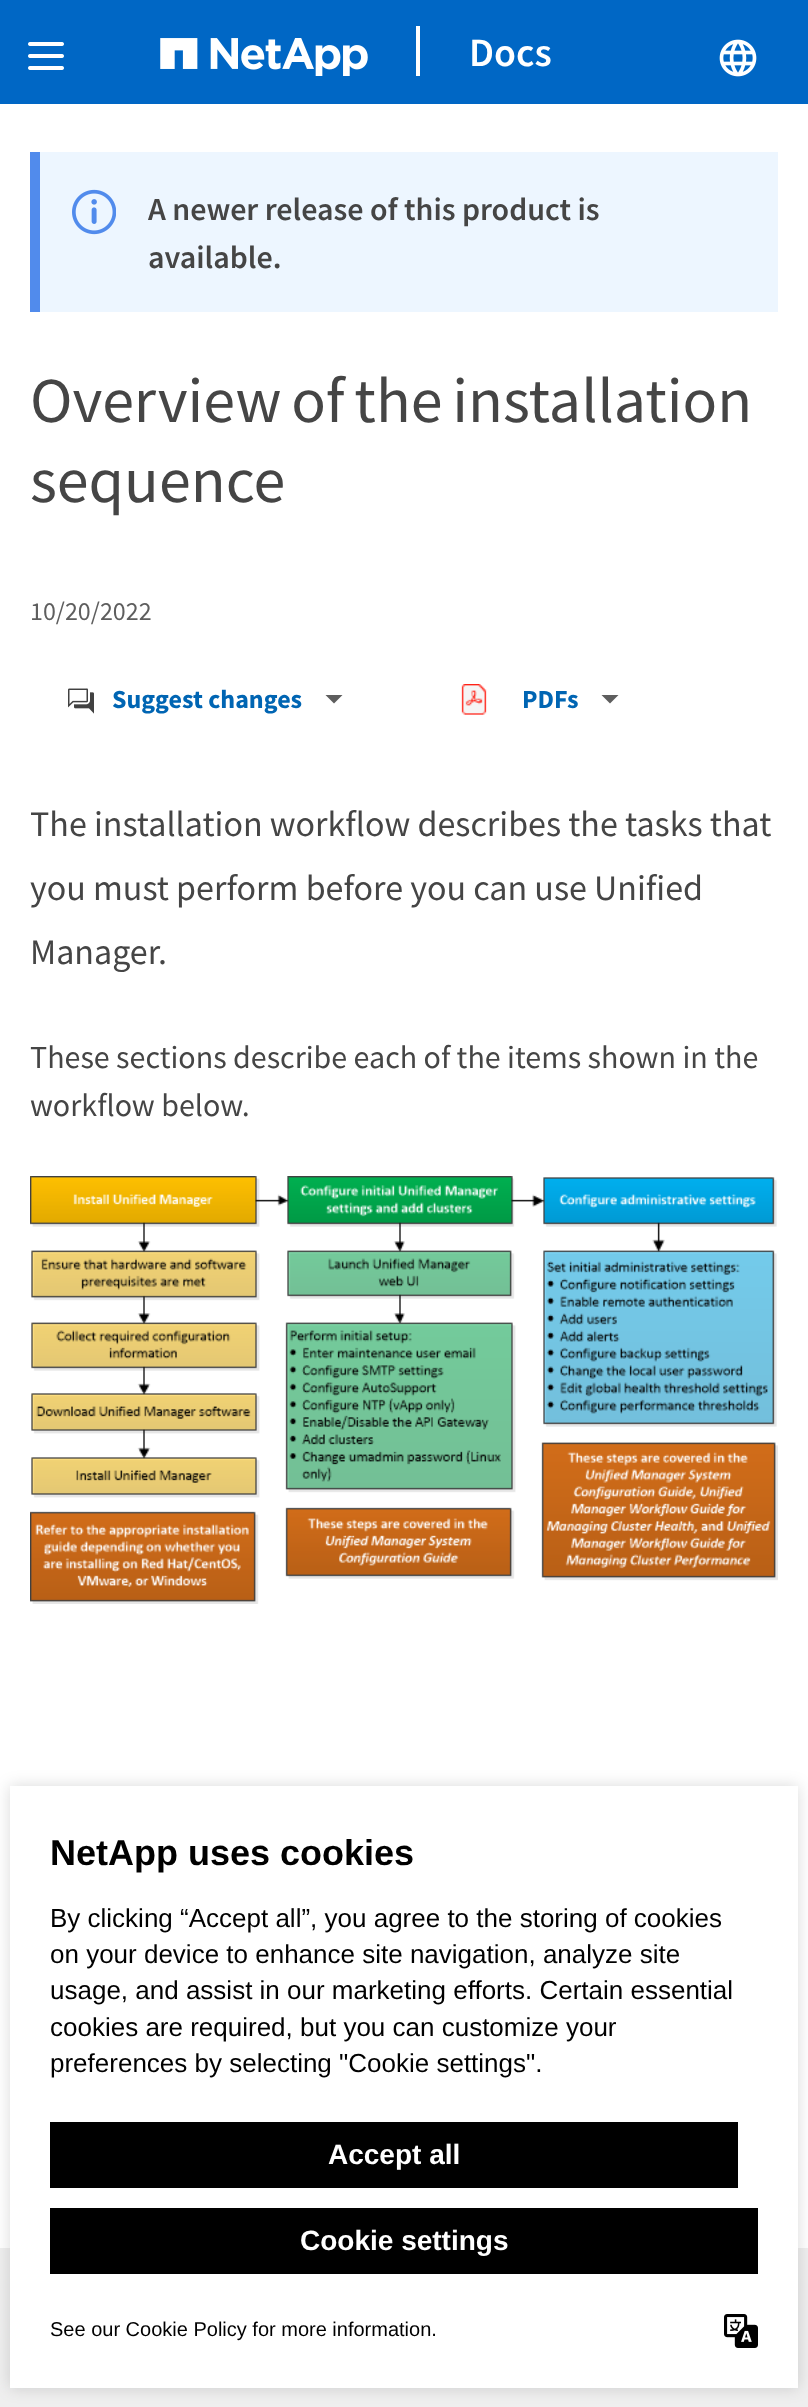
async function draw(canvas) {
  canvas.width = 808;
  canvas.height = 2407;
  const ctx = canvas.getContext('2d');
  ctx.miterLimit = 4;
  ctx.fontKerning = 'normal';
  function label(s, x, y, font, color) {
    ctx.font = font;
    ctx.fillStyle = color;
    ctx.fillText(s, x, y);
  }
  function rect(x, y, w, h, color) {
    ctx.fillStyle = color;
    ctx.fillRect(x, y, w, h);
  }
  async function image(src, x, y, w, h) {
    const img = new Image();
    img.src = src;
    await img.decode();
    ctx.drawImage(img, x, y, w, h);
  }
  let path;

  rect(0, 0, 808, 2407, '#fff');
  rect(0, 0, 808, 104, '#0067c5');
  await image('assets/img1.png', 28, 42, 36, 28);
  await image('assets/img2.png', 160, 38, 208, 38);
  rect(416, 26, 4, 50, '#fff');
  label('Docs', 469, 66, '600 40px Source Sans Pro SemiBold', '#fff');
  await image('assets/img3.png', 719, 39, 38, 38);
  rect(40, 152, 738, 160, '#edf6ff');
  rect(30, 152, 10, 160, '#518bec');
  await image('assets/img4.png', 72, 189, 44, 46);
  label('A newer release of this product is', 148, 220, '600 32px Source Sans Pro SemiBold', '#454545');
  label('available.', 148, 268, '600 32px Source Sans Pro SemiBold', '#454545');
  ctx.wordSpacing = '-3px';
  label('Overview of the installation', 30, 422, '64px Source Sans Pro', '#454545');
  ctx.wordSpacing = '0px';
  label('sequence', 30, 502, '64px Source Sans Pro', '#454545');
  label('10/20/2022', 30, 620, '26px Source Sans Pro', '#5e5e5e');
  await image('assets/img5.png', 68, 688, 26, 26);
  label('Suggest changes', 112, 708, 'bold 26px Source Sans Pro', '#0065b3');
  ctx.fillStyle = '#5e5e5e';
  path = new Path2D('M334 703.5L325.5 695H342.5Z');
  ctx.fill(path);
  await image('assets/img6.png', 461, 684, 26, 31);
  label('PDFs', 522, 708, 'bold 26px Source Sans Pro', '#0065b3');
  ctx.fillStyle = '#5e5e5e';
  path = new Path2D('M610 703.5L601.5 695H618.5Z');
  ctx.fill(path);
  label('The installation workflow describes the tasks that', 30, 836, '36px Source Sans Pro', '#454545');
  label('you must perform before you can use Unified', 30, 900, '36px Source Sans Pro', '#454545');
  label('Manager.', 30, 964, '36px Source Sans Pro', '#454545');
  label('These sections describe each of the items shown in the', 30, 1068, '32px Source Sans Pro', '#454545');
  label('workflow below.', 30, 1116, '32px Source Sans Pro', '#454545');
  await image('assets/img7.png', 30, 1176, 748, 428);
  rect(0, 2248, 808, 159, '#efefef');
  ctx.fillStyle = '#00000026';
  ctx.filter = 'blur(8px)';
  ctx.beginPath();
  ctx.rect(10, 1786, 788, 602);
  ctx.fill();
  ctx.filter = 'none';
  rect(10, 1786, 788, 602, '#fff');
  label('NetApp uses cookies', 50, 1865, 'bold 36px Liberation Sans', '#000');
  label('By clicking “Accept all”, you agree to the storing of cookies', 50, 1927, '26px Liberation Sans', '#000');
  label('on your device to enhance site navigation, analyze site', 50, 1963, '26px Liberation Sans', '#000');
  label('usage, and assist in our marketing efforts. Certain essential', 50, 1999, '26px Liberation Sans', '#000');
  label('cookies are required, but you can customize your', 50, 2036, '26px Liberation Sans', '#000');
  label('preferences by selecting "Cookie settings".', 50, 2072, '26px Liberation Sans', '#000');
  rect(50, 2122, 688, 66, '#000');
  label('Accept all', 328, 2164, 'bold 28px Liberation Sans', '#fff');
  rect(50, 2208, 708, 66, '#000');
  label('Cookie settings', 300, 2250, 'bold 28px Liberation Sans', '#fff');
  label('See our Cookie Policy for more information.', 50, 2336, '20px Liberation Sans', '#000');
  await image('assets/img8.png', 724, 2314, 34, 34);
}

draw(document.querySelector('canvas'));
